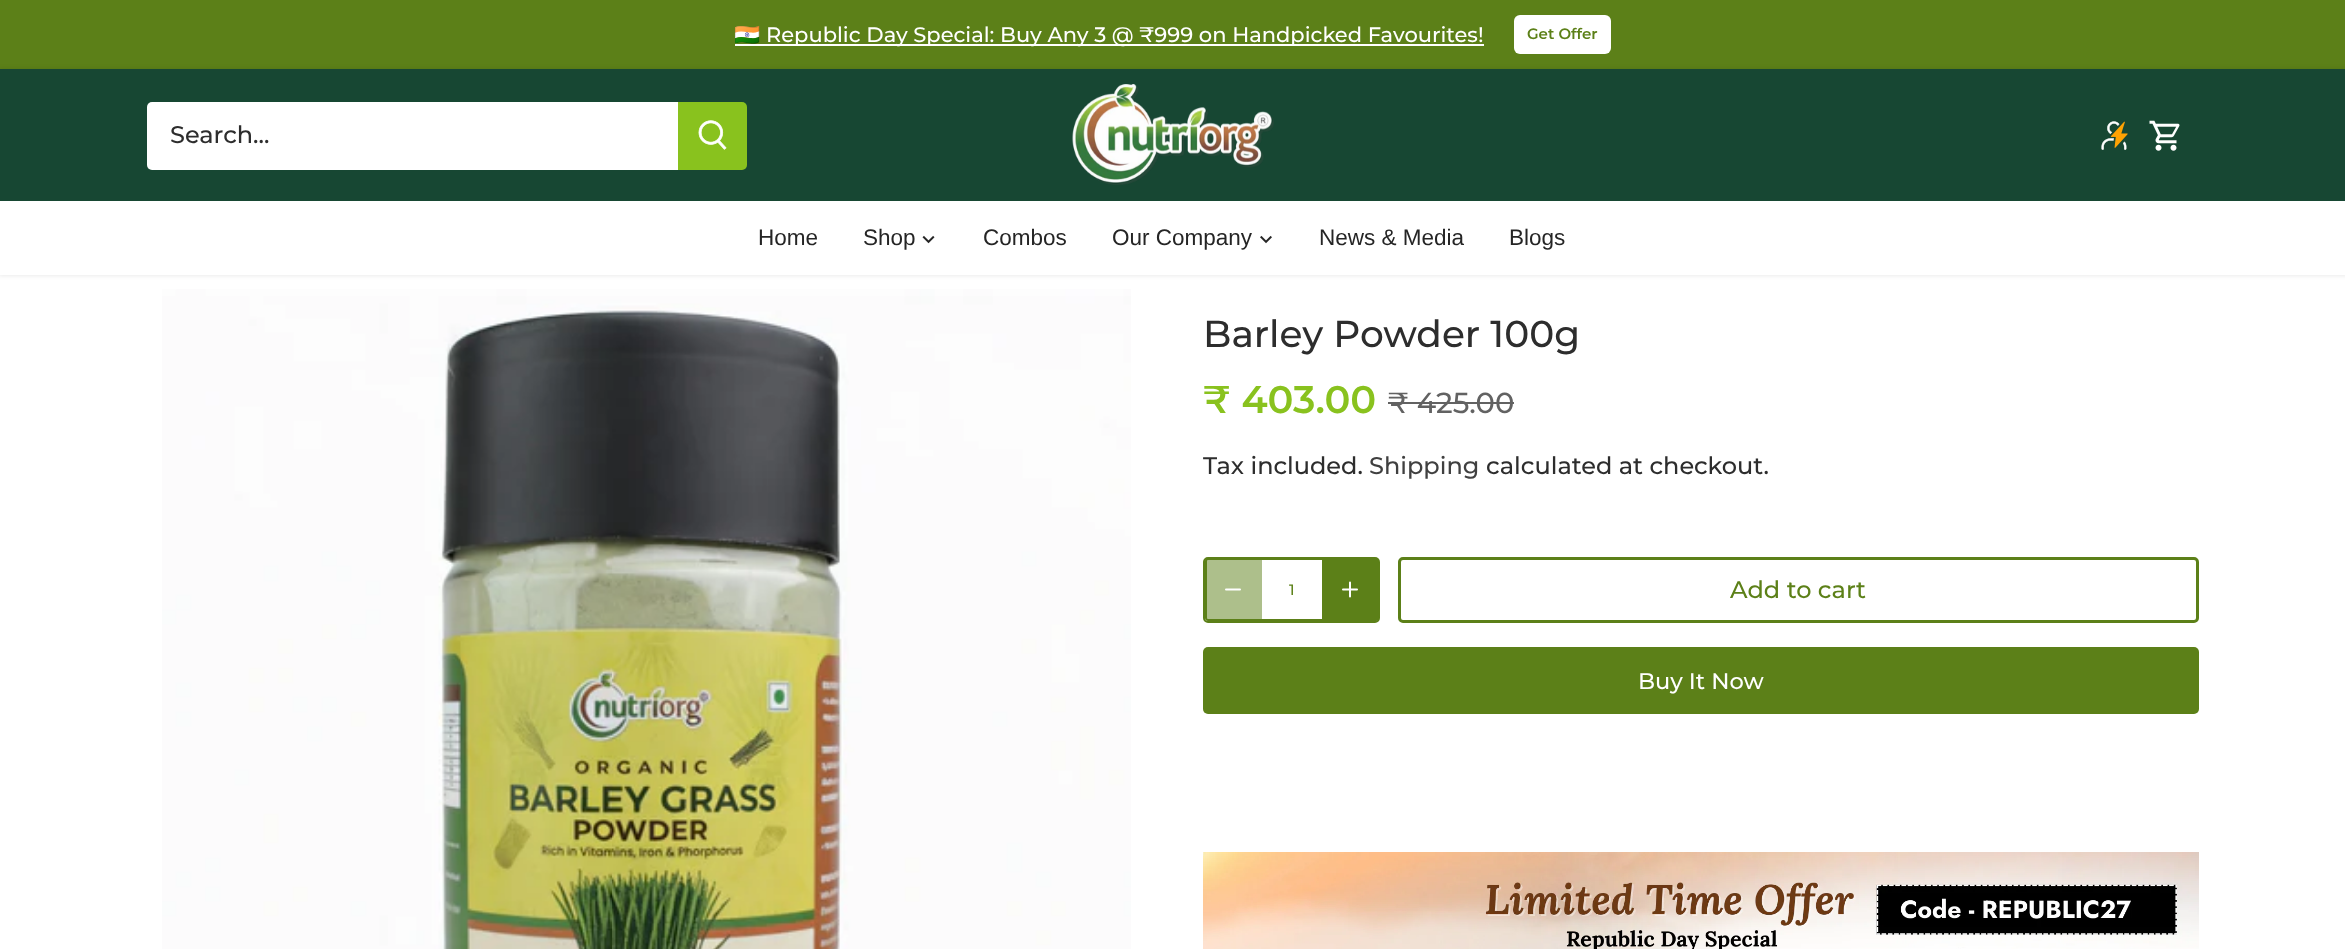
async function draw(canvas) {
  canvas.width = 2345;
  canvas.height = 949;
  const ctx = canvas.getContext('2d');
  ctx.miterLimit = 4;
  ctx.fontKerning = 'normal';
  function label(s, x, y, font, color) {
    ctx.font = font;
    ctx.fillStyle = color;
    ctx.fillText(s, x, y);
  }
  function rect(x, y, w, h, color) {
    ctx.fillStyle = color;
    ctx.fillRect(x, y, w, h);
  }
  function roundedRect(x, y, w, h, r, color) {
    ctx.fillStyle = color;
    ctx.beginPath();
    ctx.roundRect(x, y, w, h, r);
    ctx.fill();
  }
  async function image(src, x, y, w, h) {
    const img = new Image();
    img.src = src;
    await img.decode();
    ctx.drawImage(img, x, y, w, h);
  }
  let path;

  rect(0, 0, 2345, 949, '#fff');
  rect(0, 0, 2345, 69, '#5c8018');
  rect(735, 44, 749, 2, '#fff');
  label('🇮🇳', 734, 42, '21px Noto Color Emoji', '#fff');
  label('Republic Day Special: Buy Any 3 @ ₹999 on Handpicked Favourites!', 766, 42, '500 21px Montserrat', '#fff');
  roundedRect(1514, 15, 97, 39, 6, '#fff');
  label('Get Offer', 1527, 39, '600 15px Montserrat', '#5c8018');
  ctx.fillStyle = '#00000014';
  ctx.filter = 'blur(2px)';
  ctx.beginPath();
  ctx.rect(-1, 68, 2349, 208);
  ctx.fill();
  ctx.filter = 'none';
  rect(0, 201, 2345, 74, '#fff');
  rect(0, 69, 2345, 132, '#174733');
  ctx.fillStyle = '#fff';
  ctx.beginPath();
  ctx.roundRect(147, 102, 533, 68, [5, 0, 0, 5]);
  ctx.fill();
  label('Search...', 170, 143, '500 24px Montserrat', '#2d2d2d');
  ctx.fillStyle = '#89c21e';
  ctx.beginPath();
  ctx.roundRect(678, 102, 69, 68, [0, 5, 5, 0]);
  ctx.fill();
  await image('assets/img1.png', 698, 120, 29, 30);
  await image('assets/img2.png', 1072, 84, 202, 101);
  await image('assets/img3.png', 2101, 121, 27, 29);
  await image('assets/img4.png', 2149, 120, 31, 31);
  label('Home', 758, 245, '22.5px Arimo', '#252525');
  label('Shop', 863, 245, '22.5px Arimo', '#252525');
  await image('assets/img5.png', 922, 235, 13, 9);
  label('Combos', 983, 245, '22.5px Arimo', '#252525');
  label('Our Company', 1112, 245, '22.5px Arimo', '#252525');
  await image('assets/img6.png', 1260, 235, 12, 9);
  label('News & Media', 1319, 245, '22.5px Arimo', '#252525');
  label('Blogs', 1509, 245, '22.5px Arimo', '#252525');
  await image('assets/img7.png', 162, 289, 969, 660);
  label('Barley Powder 100g', 1203, 347, '500 37.5px Montserrat', '#2d2d2d');
  label('₹ 403.00', 1203, 413, '600 38.5px Montserrat', '#89c21e');
  label('₹ 425.00', 1388, 413, '500 29px Montserrat', '#626262');
  rect(1388, 402, 126, 2, '#626262');
  label('Tax included.', 1203, 474, '500 24px Montserrat', '#2d2d2d');
  label('Shipping', 1369, 474, '500 24px Montserrat', '#404040');
  label('calculated at checkout.', 1486, 474, '500 24px Montserrat', '#2d2d2d');
  ctx.beginPath();
  ctx.roundRect(1206, 559, 172, 61, 2);
  ctx.strokeStyle = '#5c8018';
  ctx.lineWidth = 2;
  ctx.stroke();
  ctx.beginPath();
  ctx.roundRect(1204, 558, 175, 64, 4);
  ctx.stroke();
  ctx.fillStyle = '#5c801880';
  ctx.beginPath();
  ctx.roundRect(1205, 558, 57, 63, [5, 0, 0, 5]);
  ctx.fill();
  path = new Path2D('M1226 589.5H1240');
  ctx.strokeStyle = '#fff';
  ctx.lineCap = 'round';
  ctx.lineJoin = 'round';
  ctx.stroke(path);
  label('1', 1289, 595, '500 15px Montserrat', '#5c8018');
  ctx.beginPath();
  ctx.roundRect(1322, 558, 57, 63, [0, 5, 5, 0]);
  ctx.fill();
  path = new Path2D('M1350 582.5V596.5M1343 589.5H1357');
  ctx.stroke(path);
  ctx.beginPath();
  ctx.roundRect(1399.5, 558.5, 798, 63, 3.5);
  ctx.strokeStyle = '#5c8018';
  ctx.lineWidth = 3;
  ctx.lineJoin = 'miter';
  ctx.stroke();
  label('Add to cart', 1730, 598, '500 24px Montserrat', '#5c8018');
  path = new Path2D('M1791 582C1795 578 1802 578 1806 582');
  ctx.strokeStyle = '#fff';
  ctx.lineCap = 'butt';
  ctx.stroke(path);
  roundedRect(1203, 647, 996, 67, 5, '#5c8018');
  label('Buy It Now', 1638, 689, '500 22.5px Montserrat', '#fff');
  await image('assets/img8.png', 1203, 852, 996, 97);
}

draw(document.querySelector('canvas'));
